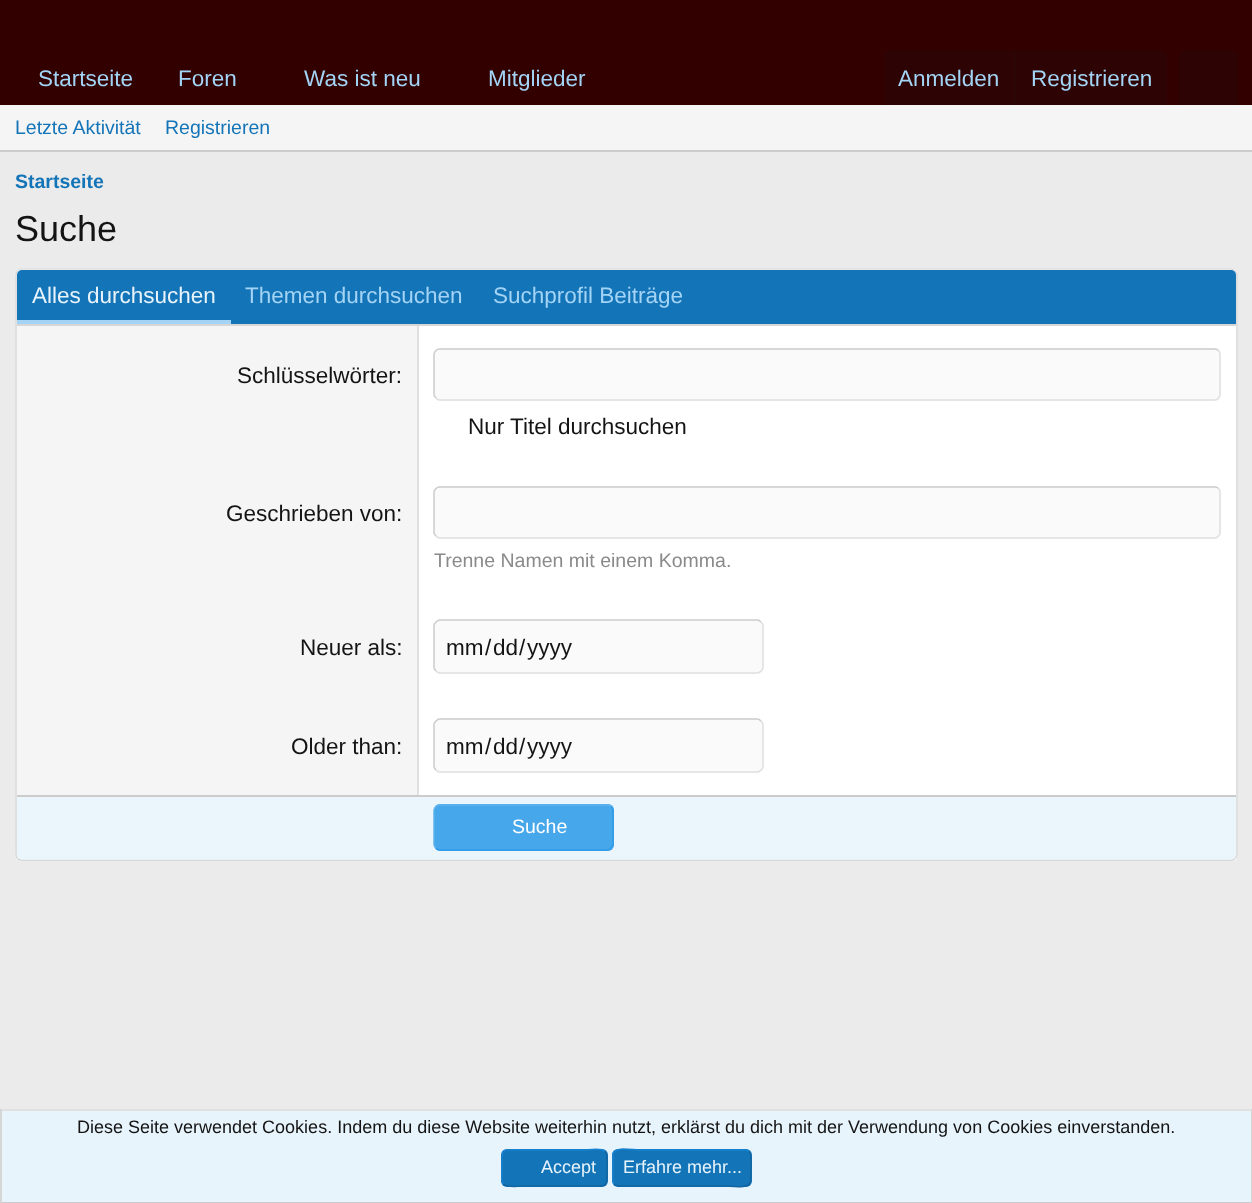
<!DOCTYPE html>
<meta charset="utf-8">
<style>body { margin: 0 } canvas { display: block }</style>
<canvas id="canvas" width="1252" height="1203"></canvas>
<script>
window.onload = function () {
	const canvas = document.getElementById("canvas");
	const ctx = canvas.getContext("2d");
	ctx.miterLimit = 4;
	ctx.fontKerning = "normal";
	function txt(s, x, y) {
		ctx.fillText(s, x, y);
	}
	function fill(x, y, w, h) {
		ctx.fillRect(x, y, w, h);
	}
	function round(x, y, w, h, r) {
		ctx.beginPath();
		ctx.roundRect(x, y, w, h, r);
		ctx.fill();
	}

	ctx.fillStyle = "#EBEBEB";
	fill(0, 0, 1252, 1203);
	ctx.fillStyle = "#330000";
	fill(0, 0, 1252, 105);
	ctx.fillStyle = "#2E0303";
	ctx.beginPath();
	ctx.roundRect(884, 50, 283, 55, [6, 6, 0, 0]);
	ctx.fill();
	ctx.fillStyle = "#2A0606";
	fill(1014, 50, 2, 55);
	ctx.fillStyle = "#2E0303";
	ctx.beginPath();
	ctx.roundRect(1179, 50, 59, 55, [6, 6, 0, 0]);
	ctx.fill();
	ctx.fillStyle = "#F5F5F5";
	fill(0, 105, 1252, 45);
	ctx.fillStyle = "#CCCCCC";
	fill(0, 150, 1252, 2);
	ctx.fillStyle = "#FFFFFF";
	round(15, 269, 1223, 592, 6);
	ctx.beginPath();
	ctx.moveTo(17.5, 271);
	ctx.bezierCurveTo(18.5, 270, 19.5, 269, 21, 269);
	ctx.lineTo(1231.5, 269);
	ctx.bezierCurveTo(1233, 269, 1234, 270, 1235, 271);
	ctx.strokeStyle = "#E0E0E0";
	ctx.lineWidth = 1.5;
	ctx.stroke();
	ctx.beginPath();
	ctx.moveTo(1235, 271);
	ctx.bezierCurveTo(1236, 272, 1237, 273, 1237, 274.5);
	ctx.lineTo(1237, 855);
	ctx.bezierCurveTo(1237, 856.5, 1236, 857.5, 1235, 858.5);
	ctx.strokeStyle = "#D6D6D6";
	ctx.stroke();
	ctx.beginPath();
	ctx.moveTo(1235, 858.5);
	ctx.bezierCurveTo(1234, 859.5, 1233, 860, 1231.5, 860);
	ctx.lineTo(21, 860);
	ctx.bezierCurveTo(19.5, 860, 18.5, 859.5, 17.5, 858.5);
	ctx.strokeStyle = "#CCCCCC";
	ctx.stroke();
	ctx.beginPath();
	ctx.moveTo(17.5, 858.5);
	ctx.bezierCurveTo(16.5, 857.5, 16, 856.5, 16, 855);
	ctx.lineTo(16, 274.5);
	ctx.bezierCurveTo(16, 273, 16.5, 272, 17.5, 271);
	ctx.strokeStyle = "#D6D6D6";
	ctx.stroke();
	ctx.fillStyle = "#1474B8";
	ctx.beginPath();
	ctx.roundRect(17, 270, 1219, 56, [5, 5, 0, 0]);
	ctx.fill();
	ctx.fillStyle = "#D6D6D6";
	fill(17, 324, 1219, 2);
	ctx.fillStyle = "#A3D4F5";
	fill(17, 320, 214, 4);
	ctx.fillStyle = "#F5F5F5";
	fill(17, 326, 400, 469);
	ctx.fillStyle = "#E0E0E0";
	fill(417, 326, 2, 469);
	ctx.fillStyle = "#FAFAFA";
	round(434, 348, 787, 53, 6);
	ctx.beginPath();
	ctx.moveTo(1218.5, 350.5);
	ctx.bezierCurveTo(1219.5, 351.5, 1220, 352.5, 1220, 354);
	ctx.lineTo(1220, 394.5);
	ctx.bezierCurveTo(1220, 396, 1219.5, 397, 1218.5, 398);
	ctx.bezierCurveTo(1217.5, 399, 1216.5, 400, 1215, 400);
	ctx.lineTo(439.5, 400);
	ctx.bezierCurveTo(438, 400, 437, 399, 436, 398);
	ctx.strokeStyle = "#E0E0E0";
	ctx.stroke();
	ctx.beginPath();
	ctx.moveTo(436, 398);
	ctx.bezierCurveTo(435, 397, 434, 396, 434, 394.5);
	ctx.lineTo(434, 354);
	ctx.bezierCurveTo(434, 352.5, 435, 351.5, 436, 350.5);
	ctx.bezierCurveTo(437, 349.5, 438, 349, 439.5, 349);
	ctx.lineTo(1215, 349);
	ctx.bezierCurveTo(1216.5, 349, 1217.5, 349.5, 1218.5, 350.5);
	ctx.strokeStyle = "#CCCCCC";
	ctx.stroke();
	round(434, 486, 787, 53, 6);
	ctx.beginPath();
	ctx.moveTo(1218.5, 488.5);
	ctx.bezierCurveTo(1219.5, 489.5, 1220, 490.5, 1220, 492);
	ctx.lineTo(1220, 532.5);
	ctx.bezierCurveTo(1220, 534, 1219.5, 535, 1218.5, 536);
	ctx.bezierCurveTo(1217.5, 537, 1216.5, 538, 1215, 538);
	ctx.lineTo(439.5, 538);
	ctx.bezierCurveTo(438, 538, 437, 537, 436, 536);
	ctx.strokeStyle = "#E0E0E0";
	ctx.stroke();
	ctx.beginPath();
	ctx.moveTo(436, 536);
	ctx.bezierCurveTo(435, 535, 434, 534, 434, 532.5);
	ctx.lineTo(434, 492);
	ctx.bezierCurveTo(434, 490.5, 435, 489.5, 436, 488.5);
	ctx.bezierCurveTo(437, 487.5, 438, 487, 439.5, 487);
	ctx.lineTo(1215, 487);
	ctx.bezierCurveTo(1216.5, 487, 1217.5, 487.5, 1218.5, 488.5);
	ctx.strokeStyle = "#CCCCCC";
	ctx.stroke();
	round(434, 620, 330, 54, 6);
	ctx.beginPath();
	ctx.moveTo(761, 622);
	ctx.bezierCurveTo(762, 623, 763, 624, 763, 625.5);
	ctx.lineTo(763, 667.5);
	ctx.bezierCurveTo(763, 669, 762, 670, 761, 671);
	ctx.bezierCurveTo(760, 672, 759, 673, 757.5, 673);
	ctx.lineTo(439.5, 673);
	ctx.bezierCurveTo(438, 673, 437, 672, 436, 671);
	ctx.strokeStyle = "#E0E0E0";
	ctx.stroke();
	ctx.beginPath();
	ctx.moveTo(436, 671);
	ctx.bezierCurveTo(435, 670, 434, 669, 434, 667.5);
	ctx.lineTo(434, 625.5);
	ctx.bezierCurveTo(434, 624, 435, 623, 436, 622);
	ctx.bezierCurveTo(437, 621, 438, 620, 439.5, 620);
	ctx.lineTo(757.5, 620);
	ctx.bezierCurveTo(759, 620, 760, 621, 761, 622);
	ctx.strokeStyle = "#CCCCCC";
	ctx.stroke();
	round(434, 719, 330, 54, 6);
	ctx.beginPath();
	ctx.moveTo(761, 721);
	ctx.bezierCurveTo(762, 722, 763, 723, 763, 724.5);
	ctx.lineTo(763, 766.5);
	ctx.bezierCurveTo(763, 768, 762, 769, 761, 770);
	ctx.bezierCurveTo(760, 771, 759, 772, 757.5, 772);
	ctx.lineTo(439.5, 772);
	ctx.bezierCurveTo(438, 772, 437, 771, 436, 770);
	ctx.strokeStyle = "#E0E0E0";
	ctx.stroke();
	ctx.beginPath();
	ctx.moveTo(436, 770);
	ctx.bezierCurveTo(435, 769, 434, 768, 434, 766.5);
	ctx.lineTo(434, 724.5);
	ctx.bezierCurveTo(434, 723, 435, 722, 436, 721);
	ctx.bezierCurveTo(437, 720, 438, 719, 439.5, 719);
	ctx.lineTo(757.5, 719);
	ctx.bezierCurveTo(759, 719, 760, 720, 761, 721);
	ctx.strokeStyle = "#CCCCCC";
	ctx.stroke();
	ctx.fillStyle = "rgba(232, 244, 252, 0.9)";
	ctx.beginPath();
	ctx.roundRect(17, 795, 1219, 65, [0, 0, 5, 5]);
	ctx.fill();
	ctx.fillStyle = "#CCCCCC";
	fill(17, 795, 1219, 2);
	ctx.fillStyle = "#47A7EB";
	round(434, 804, 180, 47, 6);
	ctx.beginPath();
	ctx.moveTo(611, 806.5);
	ctx.bezierCurveTo(612, 807.5, 613, 808.5, 613, 810);
	ctx.lineTo(613, 844.5);
	ctx.bezierCurveTo(613, 846, 612, 847, 611, 848);
	ctx.bezierCurveTo(610, 849, 609, 850, 607.5, 850);
	ctx.lineTo(439.5, 850);
	ctx.bezierCurveTo(438, 850, 437, 849, 436, 848);
	ctx.strokeStyle = "#309CE8";
	ctx.stroke();
	ctx.beginPath();
	ctx.moveTo(436, 848);
	ctx.bezierCurveTo(435, 847, 434, 846, 434, 844.5);
	ctx.lineTo(434, 810);
	ctx.bezierCurveTo(434, 808.5, 435, 807.5, 436, 806.5);
	ctx.bezierCurveTo(437, 805.5, 438, 805, 439.5, 805);
	ctx.lineTo(607.5, 805);
	ctx.bezierCurveTo(609, 805, 610, 805.5, 611, 806.5);
	ctx.strokeStyle = "#5EB2ED";
	ctx.stroke();
	ctx.fillStyle = "#E8F4FC";
	fill(2, 1111, 1249, 91);
	ctx.fillStyle = "#E0E0E0";
	fill(0, 1109, 1252, 2);
	ctx.fillStyle = "#D6D6D6";
	fill(1251, 1109, 1, 94);
	ctx.fillStyle = "#CCCCCC";
	fill(0, 1202, 1252, 1);
	ctx.fillStyle = "#D6D6D6";
	fill(0, 1109, 2, 94);
	ctx.fillStyle = "#1474B8";
	round(501, 1149, 107, 38, 6);
	ctx.beginPath();
	ctx.moveTo(605, 1151.5);
	ctx.bezierCurveTo(608, 1154, 607, 1164, 607, 1168);
	ctx.bezierCurveTo(607, 1189, 608.5, 1186, 586, 1186);
	ctx.lineTo(523, 1186);
	ctx.bezierCurveTo(521, 1186, 507, 1188, 503.5, 1184);
	ctx.strokeStyle = "#1265A1";
	ctx.stroke();
	ctx.beginPath();
	ctx.moveTo(503.5, 1184);
	ctx.bezierCurveTo(500.5, 1181.5, 502, 1171.5, 502, 1168);
	ctx.bezierCurveTo(502, 1146.5, 500, 1150, 523, 1150);
	ctx.lineTo(586, 1150);
	ctx.bezierCurveTo(587.5, 1150, 601.5, 1147.5, 605, 1151.5);
	ctx.strokeStyle = "#1782CF";
	ctx.stroke();
	round(612, 1149, 140, 38, 6);
	ctx.beginPath();
	ctx.moveTo(749, 1151.5);
	ctx.bezierCurveTo(752, 1154, 751, 1164, 751, 1168);
	ctx.lineTo(750.5, 1181.5);
	ctx.bezierCurveTo(749, 1189.5, 731.5, 1186, 724, 1186);
	ctx.lineTo(618, 1186);
	ctx.bezierCurveTo(616.5, 1185.5, 615.5, 1185, 614.5, 1184);
	ctx.strokeStyle = "#1265A1";
	ctx.stroke();
	ctx.beginPath();
	ctx.moveTo(614.5, 1184);
	ctx.bezierCurveTo(611.5, 1181.5, 613, 1171.5, 613, 1168);
	ctx.lineTo(613, 1154);
	ctx.bezierCurveTo(614.5, 1146, 632, 1150, 639, 1150);
	ctx.lineTo(745.5, 1150);
	ctx.bezierCurveTo(747, 1150, 748, 1150.5, 749, 1151.5);
	ctx.strokeStyle = "#1782CF";
	ctx.stroke();
	ctx.font = "22.5px Liberation Sans";
	ctx.fillStyle = "#A3D4F5";
	txt("Startseite", 38, 86);
	txt("Foren", 178, 86);
	txt("Was ist neu", 304, 86);
	txt("Mitglieder", 488, 86);
	txt("Anmelden", 898, 86);
	txt("Registrieren", 1031, 86);
	ctx.font = "19.5px Liberation Sans";
	ctx.fillStyle = "#1474B8";
	txt("Letzte Aktivität", 15, 134);
	txt("Registrieren", 165, 134);
	ctx.font = "bold 19.5px Liberation Sans";
	txt("Startseite", 15, 188);
	ctx.font = "36px Liberation Sans";
	ctx.fillStyle = "#141414";
	txt("Suche", 15, 241);
	ctx.font = "22.5px Liberation Sans";
	ctx.fillStyle = "#E8F4FC";
	txt("Alles durchsuchen", 32, 303);
	ctx.fillStyle = "#A3D4F5";
	txt("Themen durchsuchen", 245, 303);
	txt("Suchprofil Beiträge", 493, 303);
	ctx.fillStyle = "#141414";
	txt("Schlüsselwörter:", 237, 383);
	txt("Nur Titel durchsuchen", 468, 434);
	txt("Geschrieben von:", 226, 521);
	ctx.font = "19.5px Liberation Sans";
	ctx.fillStyle = "#8A8A8A";
	txt("Trenne Namen mit einem Komma.", 434, 567);
	ctx.font = "22.5px Liberation Sans";
	ctx.fillStyle = "#141414";
	txt("Neuer als:", 300, 655);
	txt("mm", 446, 655);
	txt("/", 485, 655);
	txt("dd", 493, 655);
	txt("/", 519, 655);
	txt("yyyy", 527, 655);
	txt("Older than:", 291, 754);
	txt("mm", 446, 754);
	txt("/", 485, 754);
	txt("dd", 493, 754);
	txt("/", 519, 754);
	txt("yyyy", 527, 754);
	ctx.font = "19.5px Liberation Sans";
	ctx.fillStyle = "#FFFFFF";
	txt("Suche", 512, 833);
	ctx.font = "18px Liberation Sans";
	ctx.fillStyle = "#141414";
	txt("Diese Seite verwendet Cookies. Indem du diese Website weiterhin nutzt, erklärst du dich mit der Verwendung von Cookies einverstanden.", 77, 1133);
	ctx.fillStyle = "#E8F4FC";
	txt("Accept", 541, 1173);
	txt("Erfahre mehr...", 623, 1173);
};
</script>
